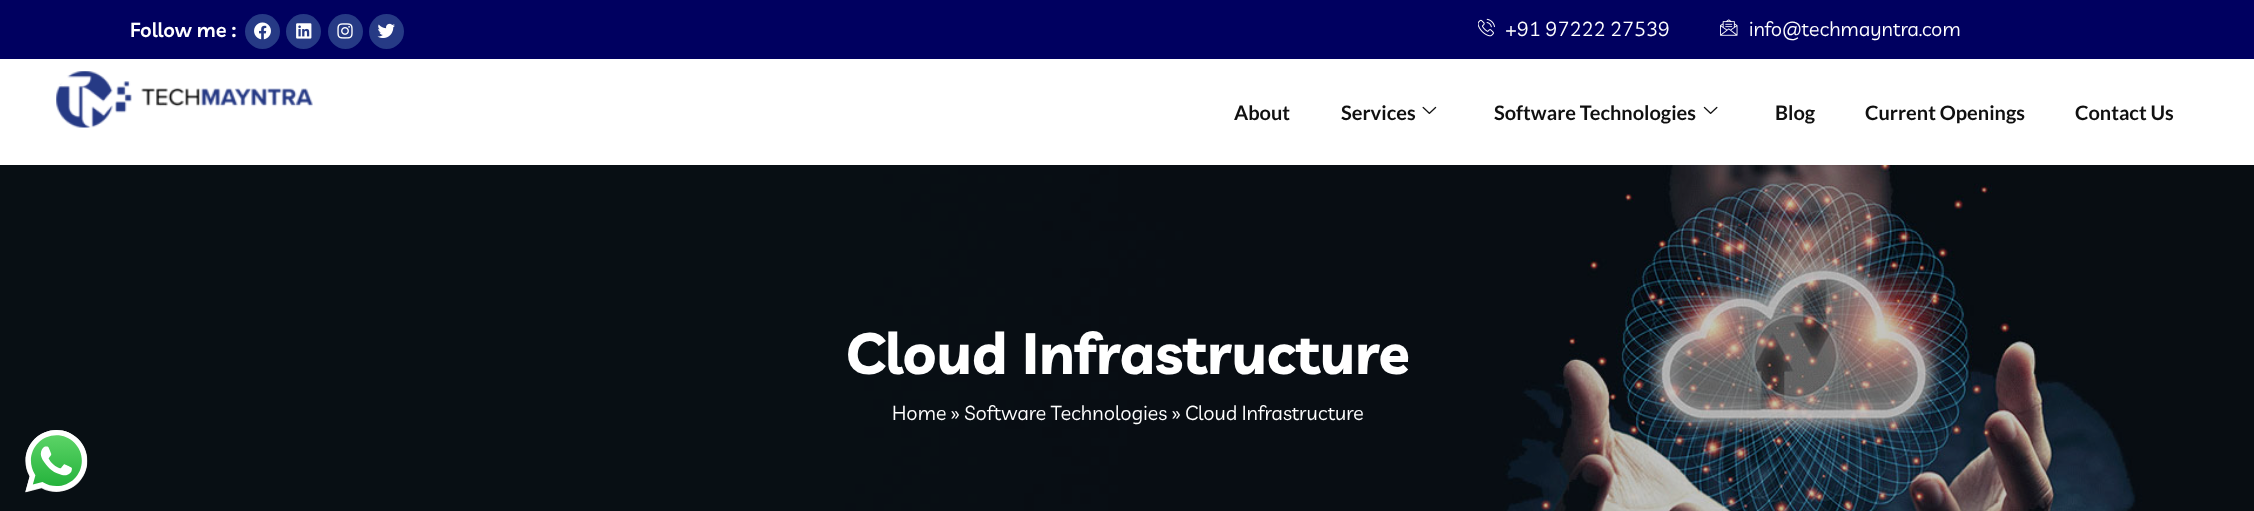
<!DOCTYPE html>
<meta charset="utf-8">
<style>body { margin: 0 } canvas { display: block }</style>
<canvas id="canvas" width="2254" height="511"></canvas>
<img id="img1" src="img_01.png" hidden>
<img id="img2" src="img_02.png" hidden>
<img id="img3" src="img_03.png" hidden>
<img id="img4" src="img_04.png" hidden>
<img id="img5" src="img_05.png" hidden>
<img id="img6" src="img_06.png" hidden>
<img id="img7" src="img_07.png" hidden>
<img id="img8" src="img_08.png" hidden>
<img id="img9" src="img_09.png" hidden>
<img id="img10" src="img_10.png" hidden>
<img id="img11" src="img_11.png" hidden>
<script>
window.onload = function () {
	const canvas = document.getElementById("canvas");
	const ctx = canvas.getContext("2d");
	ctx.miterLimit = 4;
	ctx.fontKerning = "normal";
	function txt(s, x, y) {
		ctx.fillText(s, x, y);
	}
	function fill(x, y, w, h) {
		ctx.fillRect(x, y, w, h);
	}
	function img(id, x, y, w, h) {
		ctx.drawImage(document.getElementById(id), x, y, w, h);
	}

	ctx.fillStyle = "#FFFFFF";
	fill(0, 0, 2254, 511);
	ctx.fillStyle = "#000060";
	fill(0, 0, 2254, 59);
	ctx.fillStyle = "#263A85";
	ctx.beginPath();
	ctx.arc(262.5, 31.5, 17.5, 0, Math.PI * 2);
	ctx.fill();
	img("img1", 254, 22, 17, 18);
	ctx.beginPath();
	ctx.arc(303.5, 31.5, 17.5, 0, Math.PI * 2);
	ctx.fill();
	img("img2", 296, 23, 16, 16);
	ctx.beginPath();
	ctx.arc(345.5, 31.5, 17.5, 0, Math.PI * 2);
	ctx.fill();
	img("img3", 337, 23, 16, 16);
	ctx.beginPath();
	ctx.arc(386.5, 31.5, 17.5, 0, Math.PI * 2);
	ctx.fill();
	img("img4", 377, 23, 18, 15);
	img("img5", 1478, 18, 17, 19);
	img("img6", 1720, 19, 18, 17);
	img("img7", 56, 71, 257, 57);
	img("img8", 1422, 106, 15, 8);
	img("img9", 1703, 106, 15, 8);
	img("img10", 0, 165, 2254, 346);
	img("img11", 25, 430, 63, 63);
	ctx.font = "600 20px Livvic";
	ctx.fillStyle = "#FFFFFF";
	txt("Follow me :", 130, 37);
	ctx.font = "20px Livvic";
	txt("+91 97222 27539", 1505, 36);
	txt("info@techmayntra.com", 1749, 36);
	ctx.font = "bold 20px Lato";
	ctx.fillStyle = "#101010";
	txt("About", 1234, 120);
	txt("Services", 1341, 120);
	txt("Software Technologies", 1494, 120);
	txt("Blog", 1775, 120);
	txt("Current Openings", 1865, 120);
	txt("Contact Us", 2075, 120);
	ctx.font = "bold 57.5px Livvic";
	ctx.fillStyle = "#FFFFFF";
	txt("Cloud Infrastructure", 846, 374);
	ctx.font = "20px Livvic";
	txt("Home » Software Technologies » Cloud Infrastructure", 892, 420);
};
</script>
